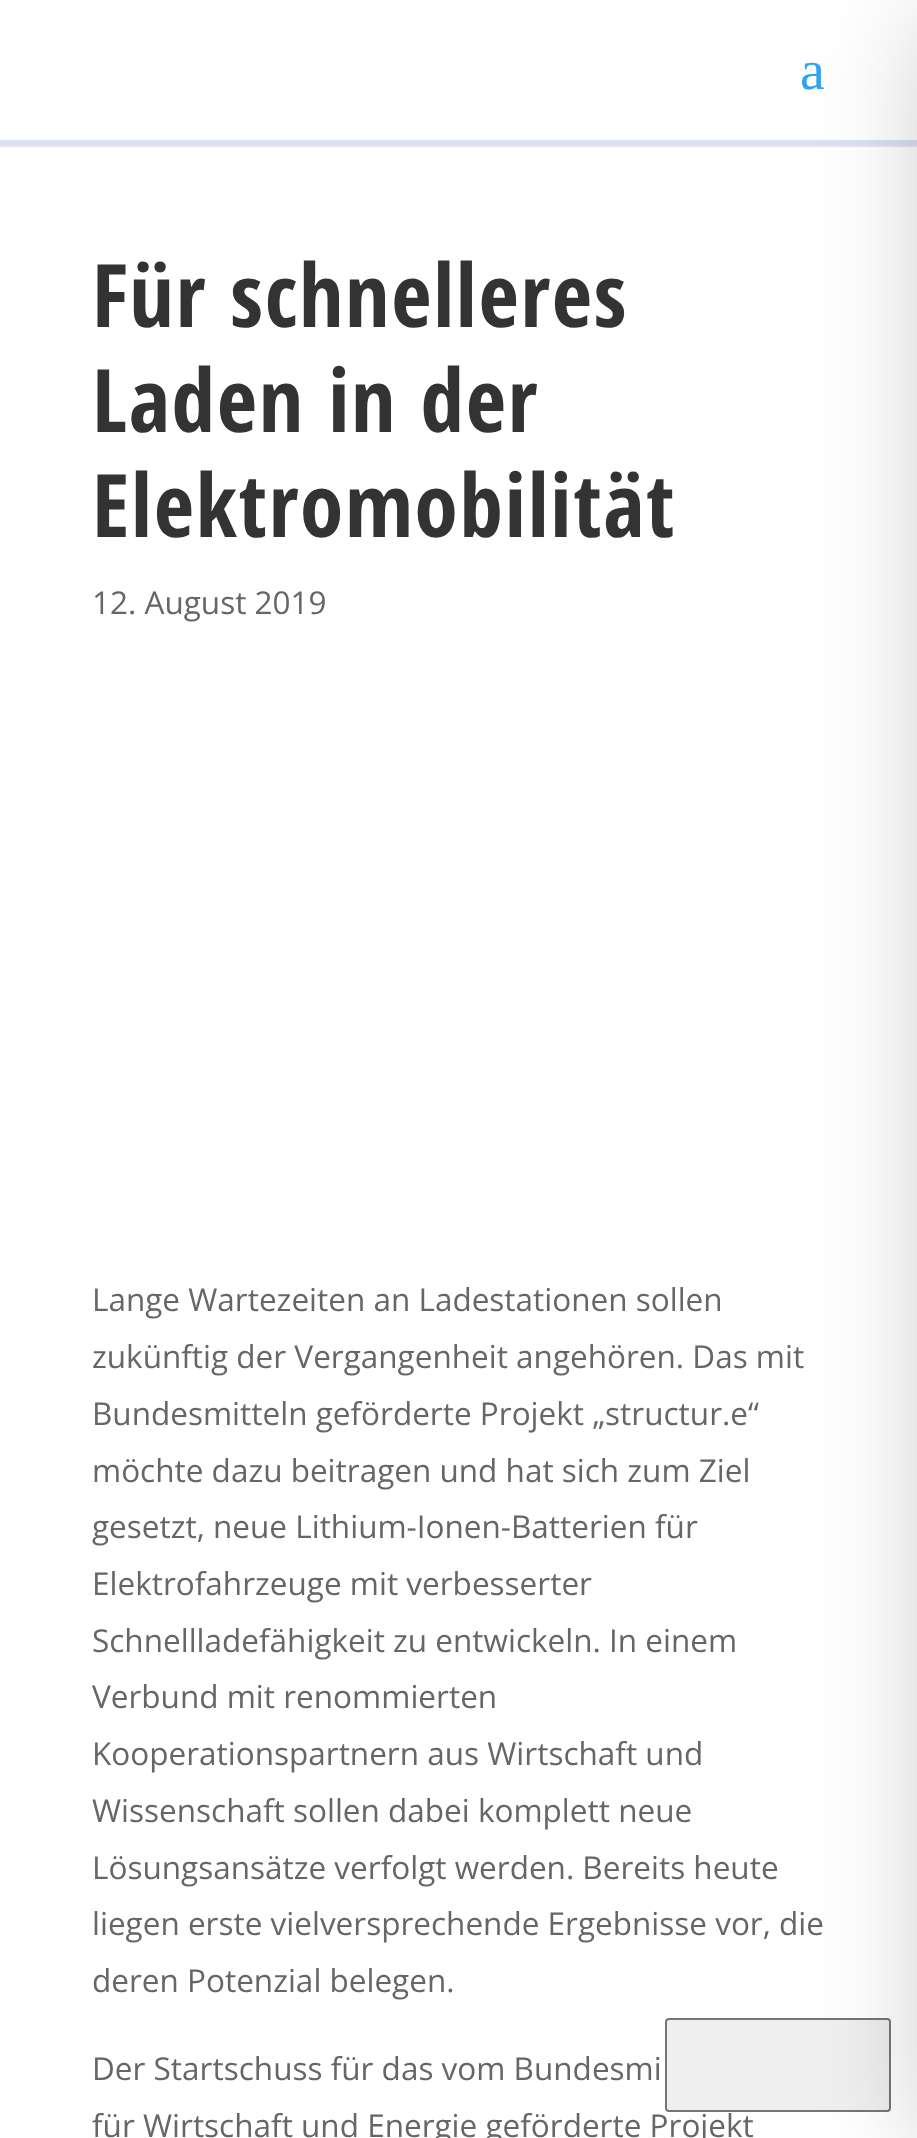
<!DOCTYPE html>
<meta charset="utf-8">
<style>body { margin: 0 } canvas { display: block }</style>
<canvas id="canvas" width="917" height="2138"></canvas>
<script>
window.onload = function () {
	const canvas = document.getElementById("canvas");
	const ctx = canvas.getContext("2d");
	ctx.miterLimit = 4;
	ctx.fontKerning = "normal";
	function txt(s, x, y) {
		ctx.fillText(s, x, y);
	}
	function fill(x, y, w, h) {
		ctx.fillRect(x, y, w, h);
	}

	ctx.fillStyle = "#FFFFFF";
	fill(0, 0, 917, 2138);
	ctx.fillStyle = "#E6E6E6";
	fill(0, 145, 917, 2);
	ctx.fillStyle = "#DBE0F2";
	fill(0, 140, 917, 5);
	ctx.fillStyle = "#EFEFEF";
	ctx.beginPath();
	ctx.roundRect(666, 2019, 224, 92, 3);
	ctx.fill();
	ctx.strokeStyle = "#767676";
	ctx.lineWidth = 2;
	ctx.stroke();
	ctx.fillStyle = "rgba(0, 0, 0, 0.2)";
	ctx.filter = "blur(52.5px)";
	ctx.beginPath();
	ctx.rect(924, 18, 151, 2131);
	ctx.fill();
	ctx.filter = "none";
	ctx.font = "56px Liberation Serif";
	ctx.fillStyle = "#2EA3F2";
	txt("a", 800, 89);
	ctx.letterSpacing = "1.75px";
	ctx.font = "bold 87.5px Open Sans Condensed";
	ctx.fillStyle = "#333333";
	txt("Für schnelleres", 92, 327);
	txt("Laden in der", 92, 432);
	txt("Elektromobilität", 92, 537);
	ctx.letterSpacing = "0px";
	ctx.font = "31.5px Open Sans";
	ctx.fillStyle = "#666666";
	txt("12. August 2019", 92, 614);
	txt("Lange Wartezeiten an Ladestationen sollen", 92, 1311);
	txt("zukünftig der Vergangenheit angehören. Das mit", 92, 1368);
	txt("Bundesmitteln geförderte Projekt „structur.e“", 92, 1425);
	txt("möchte dazu beitragen und hat sich zum Ziel", 92, 1482);
	txt("gesetzt, neue Lithium-Ionen-Batterien für", 92, 1538);
	txt("Elektrofahrzeuge mit verbesserter", 92, 1595);
	txt("Schnellladefähigkeit zu entwickeln. In einem", 92, 1652);
	txt("Verbund mit renommierten", 92, 1708);
	txt("Kooperationspartnern aus Wirtschaft und", 92, 1765);
	txt("Wissenschaft sollen dabei komplett neue", 92, 1822);
	txt("Lösungsansätze verfolgt werden. Bereits heute", 92, 1879);
	txt("liegen erste vielversprechende Ergebnisse vor, die", 92, 1935);
	txt("deren Potenzial belegen.", 92, 1992);
	txt("Der Startschuss für das vom Bundesmi", 92, 2080);
	txt("für Wirtschaft und Energie geförderte Projekt", 92, 2137);
};
</script>
